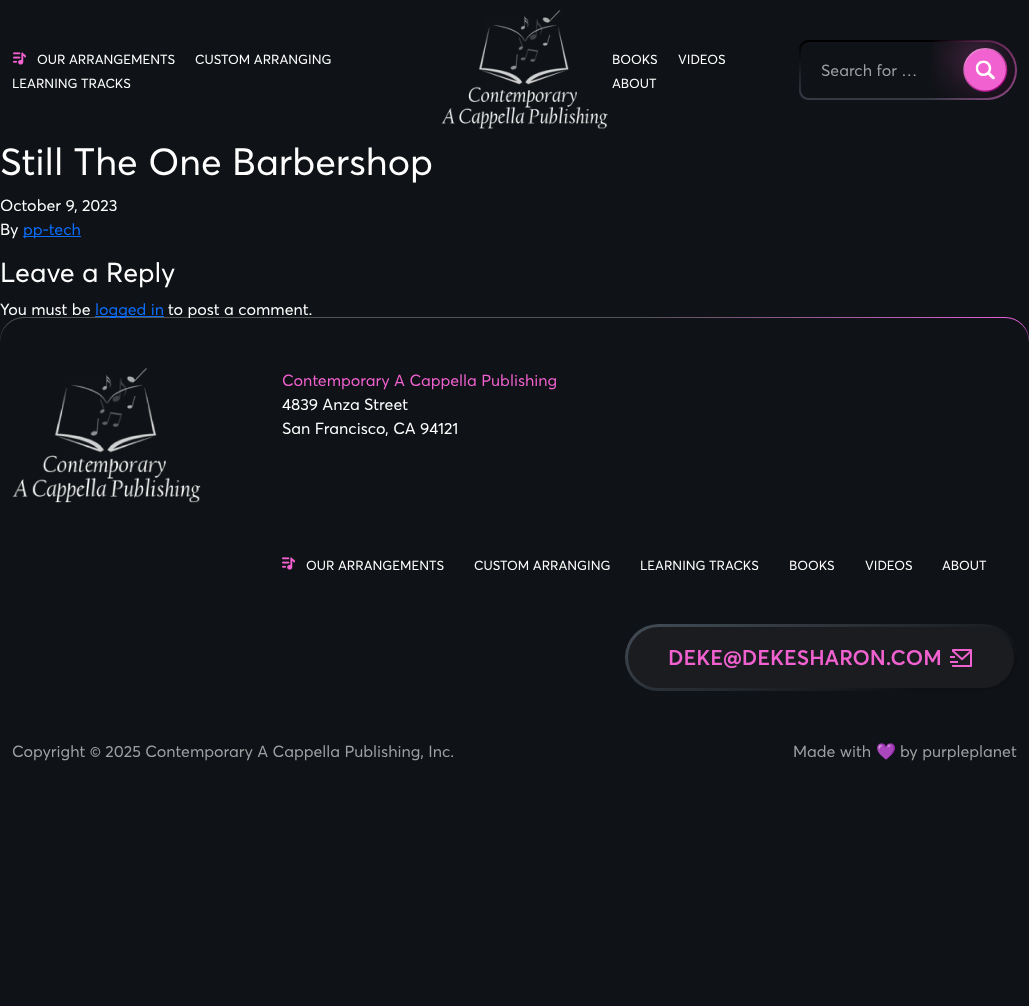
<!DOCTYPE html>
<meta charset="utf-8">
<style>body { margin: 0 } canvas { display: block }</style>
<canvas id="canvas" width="1029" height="1006"></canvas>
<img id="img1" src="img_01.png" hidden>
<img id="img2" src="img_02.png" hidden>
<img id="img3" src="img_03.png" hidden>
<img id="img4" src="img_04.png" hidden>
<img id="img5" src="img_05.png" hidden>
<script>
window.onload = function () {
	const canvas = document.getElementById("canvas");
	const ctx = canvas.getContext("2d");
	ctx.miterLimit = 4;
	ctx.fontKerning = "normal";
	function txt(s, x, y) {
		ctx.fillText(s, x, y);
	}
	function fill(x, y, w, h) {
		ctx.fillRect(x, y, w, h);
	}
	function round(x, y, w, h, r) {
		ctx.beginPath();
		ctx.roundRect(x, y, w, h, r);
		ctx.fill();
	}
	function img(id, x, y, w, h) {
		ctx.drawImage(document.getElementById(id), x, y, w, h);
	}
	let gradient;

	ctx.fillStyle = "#0F1216";
	fill(0, 0, 1029, 1006);
	img("img1", 13, 52, 13, 13);
	img("img2", 441, 10, 167, 119);
	gradient = ctx.createLinearGradient(908, 40, 908, 100);
	gradient.addColorStop(0.03, "#000000");
	gradient.addColorStop(1, "#383B46");
	ctx.fillStyle = gradient;
	ctx.beginPath();
	ctx.roundRect(799, 40, 218, 60, [9, 30, 30, 9]);
	ctx.fill();
	gradient = ctx.createLinearGradient(1018, 76, 798, 64);
	gradient.addColorStop(0.01, "rgba(241, 97, 207, 0.5)");
	gradient.addColorStop(0.4, "rgba(241, 97, 207, 0)");
	ctx.fillStyle = gradient;
	ctx.beginPath();
	ctx.roundRect(799, 40, 218, 60, [9, 30, 30, 9]);
	ctx.fill();
	ctx.fillStyle = "#0F1216";
	ctx.beginPath();
	ctx.roundRect(801, 42, 214, 56, [8, 28, 28, 8]);
	ctx.fill();
	img("img3", 932, 41, 84, 58);
	ctx.fillStyle = "#0D6EFD";
	fill(23, 236, 58, 1);
	fill(95, 316, 69, 1);
	gradient = ctx.createLinearGradient(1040, 578, -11, 521);
	gradient.addColorStop(0.01, "#F161E5");
	gradient.addColorStop(0.4, "#535353");
	ctx.fillStyle = gradient;
	ctx.beginPath();
	ctx.roundRect(0, 317, 1029, 465, [24, 24, 0, 0]);
	ctx.fill();
	ctx.font = "13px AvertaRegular";
	ctx.fillStyle = "#FFFFFF";
	txt("OUR ARRANGEMENTS", 37, 64);
	txt("CUSTOM ARRANGING", 195, 64);
	txt("LEARNING TRACKS", 12, 88);
	txt("BOOKS", 612, 64);
	txt("VIDEOS", 678, 64);
	txt("ABOUT", 612, 88);
	ctx.font = "16px AvertaRegular";
	ctx.fillStyle = "#9FA0A2";
	txt("Search for …", 821, 76);
	ctx.font = "37.5px AvertaRegular";
	ctx.fillStyle = "#FFFFFF";
	txt("Still The One Barbershop", 0, 175);
	ctx.font = "16px AvertaRegular";
	txt("October 9, 2023", 0, 211);
	txt("By", 0, 235);
	ctx.fillStyle = "#0D6EFD";
	txt("pp-tech", 23, 235);
	ctx.font = "27px AvertaRegular";
	ctx.fillStyle = "#FFFFFF";
	txt("Leave a Reply", 0, 282);
	ctx.font = "16px AvertaRegular";
	txt("You must be", 0, 315);
	ctx.fillStyle = "#0D6EFD";
	txt("logged in", 95, 315);
	ctx.fillStyle = "#FFFFFF";
	txt("to post a comment.", 168, 315);
	ctx.fillStyle = "#0F1216";
	ctx.beginPath();
	ctx.roundRect(0, 318, 1029, 465, [24, 24, 0, 0]);
	ctx.fill();
	img("img4", 12, 368, 189, 135);
	ctx.fillStyle = "#F161CF";
	txt("Contemporary A Cappella Publishing", 282, 386);
	ctx.fillStyle = "#FFFFFF";
	txt("4839 Anza Street", 282, 410);
	txt("San Francisco, CA 94121", 282, 434);
	img("img1", 282, 557, 13, 13);
	ctx.font = "13px AvertaRegular";
	txt("OUR ARRANGEMENTS", 306, 570);
	txt("CUSTOM ARRANGING", 474, 570);
	txt("LEARNING TRACKS", 640, 570);
	txt("BOOKS", 789, 570);
	txt("VIDEOS", 865, 570);
	txt("ABOUT", 942, 570);
	gradient = ctx.createLinearGradient(783, 540, 850, 745);
	gradient.addColorStop(0, "#4F5A65");
	gradient.addColorStop(0.85, "#0E1013");
	ctx.fillStyle = gradient;
	round(625, 624, 392, 67, 33.5);
	ctx.fillStyle = "#1A1C20";
	round(628, 627, 386, 61, 30.5);
	ctx.font = "600 21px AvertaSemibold";
	ctx.fillStyle = "#F161CF";
	txt("DEKE@DEKESHARON.COM", 668, 665);
	img("img5", 950, 649, 22, 18);
	ctx.font = "16px AvertaRegular";
	ctx.fillStyle = "#9FA0A2";
	txt("Copyright © 2025 Contemporary A Cappella Publishing, Inc.", 12, 757);
	txt("Made with", 793, 757);
	ctx.font = "16px Noto Color Emoji";
	txt("💜", 876, 757);
	ctx.font = "16px AvertaRegular";
	txt("by purpleplanet", 900, 757);
};
</script>
